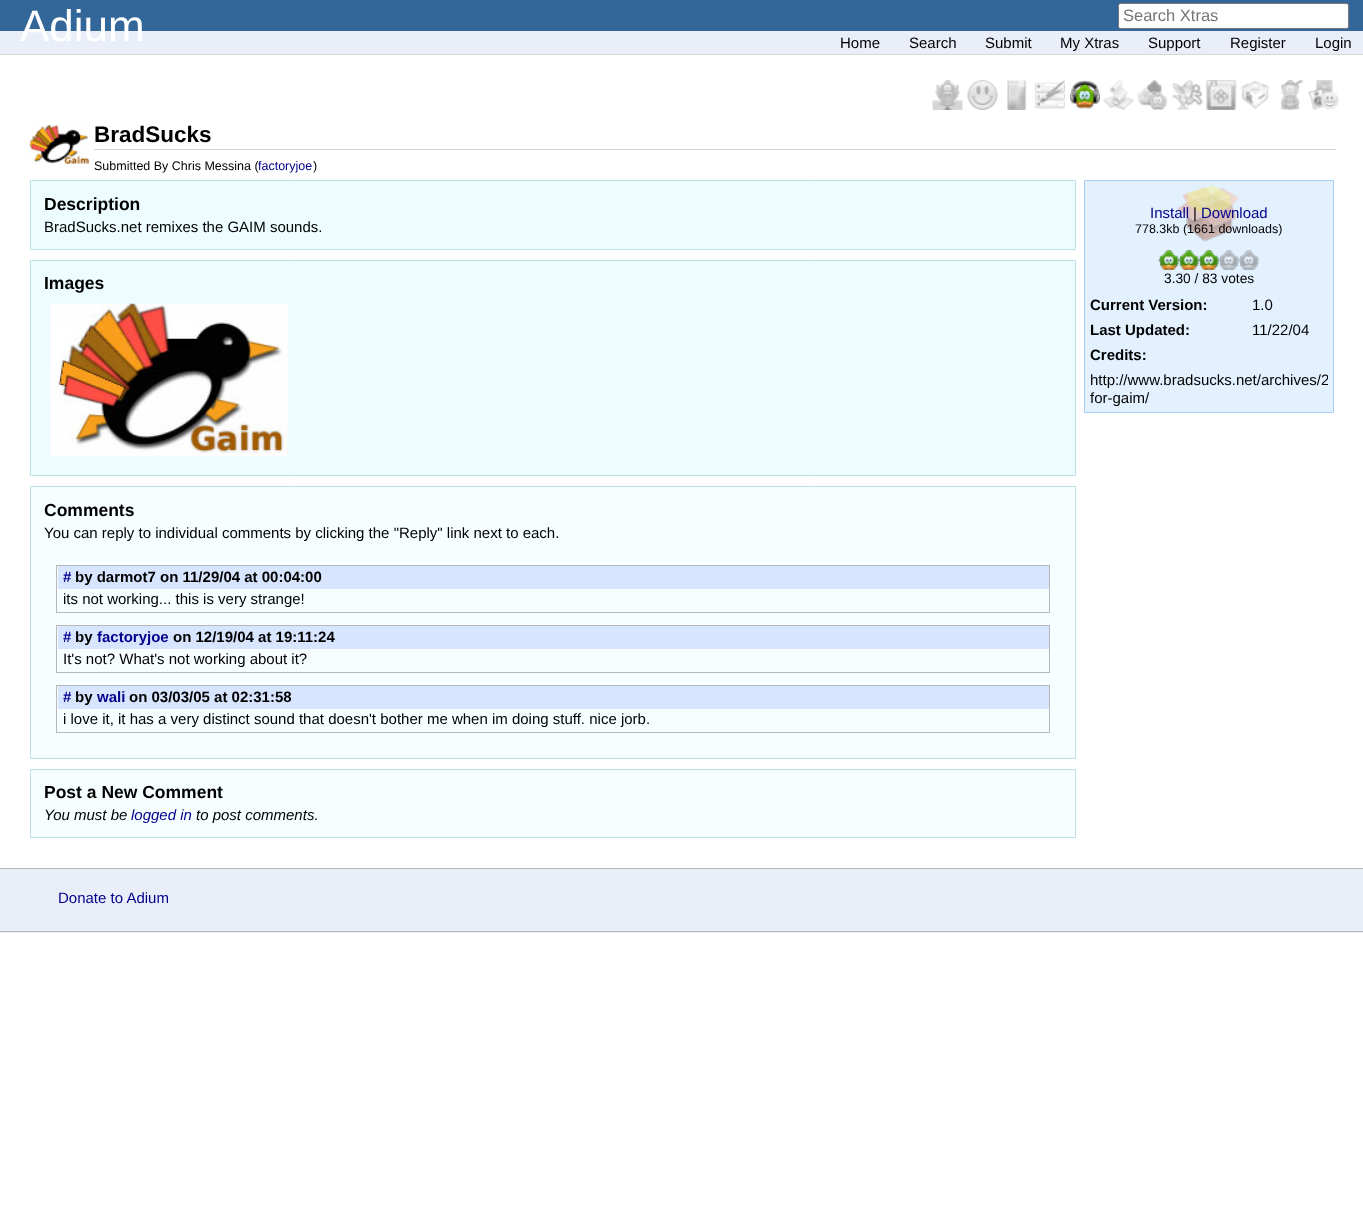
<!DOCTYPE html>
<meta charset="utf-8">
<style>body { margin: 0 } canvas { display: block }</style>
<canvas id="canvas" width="1363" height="1230"></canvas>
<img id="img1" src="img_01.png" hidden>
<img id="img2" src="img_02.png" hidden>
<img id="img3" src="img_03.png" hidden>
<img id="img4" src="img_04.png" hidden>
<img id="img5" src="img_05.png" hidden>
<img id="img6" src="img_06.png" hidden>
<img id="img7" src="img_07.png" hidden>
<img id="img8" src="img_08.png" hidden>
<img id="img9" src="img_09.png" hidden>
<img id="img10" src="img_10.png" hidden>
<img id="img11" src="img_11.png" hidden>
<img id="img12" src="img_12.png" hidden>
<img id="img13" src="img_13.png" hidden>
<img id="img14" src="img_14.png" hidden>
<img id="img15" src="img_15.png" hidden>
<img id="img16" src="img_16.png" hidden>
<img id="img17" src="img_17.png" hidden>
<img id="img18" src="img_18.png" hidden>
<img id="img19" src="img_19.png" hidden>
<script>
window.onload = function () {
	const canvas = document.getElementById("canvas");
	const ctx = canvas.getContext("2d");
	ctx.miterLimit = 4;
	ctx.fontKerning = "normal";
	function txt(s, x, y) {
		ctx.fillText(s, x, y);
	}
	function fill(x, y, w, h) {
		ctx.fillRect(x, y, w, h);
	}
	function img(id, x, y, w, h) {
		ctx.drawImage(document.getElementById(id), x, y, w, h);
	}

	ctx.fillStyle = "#FFFFFF";
	fill(0, 0, 1363, 1230);
	ctx.fillStyle = "#336699";
	fill(0, 0, 1363, 31);
	ctx.fillStyle = "#FFFFFF";
	ctx.beginPath();
	ctx.roundRect(1118.5, 3.5, 230, 25, 2);
	ctx.fill();
	ctx.strokeStyle = "#767676";
	ctx.stroke();
	ctx.fillStyle = "#E9EEF9";
	fill(0, 31, 1363, 23);
	ctx.fillStyle = "#D7D7D7";
	fill(0, 54, 1363, 1);
	img("img1", 932, 80, 31, 30);
	img("img2", 967, 80, 31, 30);
	img("img3", 1007, 80, 20, 30);
	img("img4", 1035, 80, 30, 29);
	img("img5", 1070, 80, 30, 29);
	img("img6", 1103, 80, 31, 30);
	img("img7", 1137, 80, 31, 30);
	img("img8", 1172, 80, 31, 30);
	img("img9", 1206, 80, 31, 30);
	img("img10", 1241, 81, 28, 28);
	img("img11", 1280, 80, 24, 30);
	img("img12", 1308, 80, 31, 30);
	img("img13", 28, 125, 61, 39);
	ctx.fillStyle = "#D3D3D3";
	fill(94, 149, 1242, 1);
	ctx.fillStyle = "#EDFDFF";
	ctx.beginPath();
	ctx.rect(30.5, 180.5, 1045, 69);
	ctx.fill();
	ctx.strokeStyle = "#BCDFE4";
	ctx.stroke();
	ctx.beginPath();
	ctx.rect(30.5, 260.5, 1045, 215);
	ctx.fill();
	ctx.stroke();
	img("img14", 50, 303, 238, 154);
	ctx.fillStyle = "#F7FEFF";
	ctx.beginPath();
	ctx.rect(30.5, 486.5, 1045, 272);
	ctx.fill();
	ctx.stroke();
	ctx.strokeStyle = "#B7B7B7";
	ctx.strokeRect(56.5, 565.5, 993, 47);
	ctx.fillStyle = "#D8E5FF";
	fill(58, 566, 991, 23);
	ctx.strokeRect(56.5, 625.5, 993, 47);
	fill(58, 626, 991, 23);
	ctx.strokeRect(56.5, 685.5, 993, 47);
	fill(58, 686, 991, 23);
	ctx.fillStyle = "#F7FEFF";
	ctx.beginPath();
	ctx.rect(30.5, 769.5, 1045, 68);
	ctx.fill();
	ctx.strokeStyle = "#BCDFE4";
	ctx.stroke();
	ctx.fillStyle = "#E3F1FF";
	ctx.beginPath();
	ctx.rect(1084.5, 180.5, 249, 232);
	ctx.fill();
	ctx.strokeStyle = "#A8CFF6";
	ctx.stroke();
	img("img15", 1177, 185, 62, 57);
	img("img16", 1158, 250, 21, 20);
	img("img17", 1178, 250, 21, 20);
	img("img17", 1198, 250, 21, 20);
	img("img18", 1218, 250, 21, 20);
	img("img19", 1238, 250, 21, 20);
	ctx.fillStyle = "#E9EEF9";
	fill(0, 869, 1363, 64);
	ctx.fillStyle = "#B7B7B7";
	fill(0, 868, 1363, 1);
	fill(0, 931, 1363, 1);
	ctx.font = "44px Liberation Sans";
	ctx.fillStyle = "#FFFFFF";
	txt("Adium", 20, 41);
	ctx.font = "16.5px Liberation Sans";
	ctx.fillStyle = "#757575";
	txt("Search Xtras", 1123, 21);
	ctx.font = "15px Liberation Sans";
	ctx.fillStyle = "#000000";
	txt("Home", 840, 48);
	txt("Search", 909, 48);
	txt("Submit", 985, 48);
	txt("My Xtras", 1060, 48);
	txt("Support", 1148, 48);
	txt("Register", 1230, 48);
	txt("Login", 1315, 48);
	ctx.font = "bold 22.5px Liberation Sans";
	txt("BradSucks", 94, 142);
	ctx.font = "12.5px Liberation Sans";
	txt("Submitted By Chris Messina (", 94, 170);
	ctx.fillStyle = "#00008B";
	txt("factoryjoe", 258, 170);
	ctx.fillStyle = "#000000";
	txt(")", 313, 170);
	ctx.font = "bold 17.5px Liberation Sans";
	txt("Description", 44, 210);
	ctx.font = "15px Liberation Sans";
	txt("BradSucks.net remixes the GAIM sounds.", 44, 232);
	ctx.font = "bold 17.5px Liberation Sans";
	txt("Images", 44, 289);
	txt("Comments", 44, 516);
	ctx.font = "15px Liberation Sans";
	txt("You can reply to individual comments by clicking the \"Reply\" link next to each.", 44, 538);
	ctx.font = "bold 15px Liberation Sans";
	ctx.fillStyle = "#00008B";
	txt("#", 63, 582);
	ctx.fillStyle = "#000000";
	txt("by darmot7 on 11/29/04 at 00:04:00", 75, 582);
	ctx.font = "15px Liberation Sans";
	txt("its not working... this is very strange!", 63, 604);
	ctx.font = "bold 15px Liberation Sans";
	ctx.fillStyle = "#00008B";
	txt("#", 63, 642);
	ctx.fillStyle = "#000000";
	txt("by", 75, 642);
	ctx.fillStyle = "#00008B";
	txt("factoryjoe", 97, 642);
	ctx.fillStyle = "#000000";
	txt("on 12/19/04 at 19:11:24", 173, 642);
	ctx.font = "15px Liberation Sans";
	txt("It's not? What's not working about it?", 63, 664);
	ctx.font = "bold 15px Liberation Sans";
	ctx.fillStyle = "#00008B";
	txt("#", 63, 702);
	ctx.fillStyle = "#000000";
	txt("by", 75, 702);
	ctx.fillStyle = "#00008B";
	txt("wali", 97, 702);
	ctx.fillStyle = "#000000";
	txt("on 03/03/05 at 02:31:58", 129, 702);
	ctx.font = "15px Liberation Sans";
	txt("i love it, it has a very distinct sound that doesn't bother me when im doing stuff. nice jorb.", 63, 724);
	ctx.font = "bold 17.5px Liberation Sans";
	txt("Post a New Comment", 44, 798);
	ctx.font = "italic 15px Liberation Sans";
	txt("You must be", 44, 820);
	ctx.fillStyle = "#00008B";
	txt("logged in", 131, 820);
	ctx.fillStyle = "#000000";
	txt("to post comments.", 196, 820);
	ctx.font = "15px Liberation Sans";
	ctx.fillStyle = "#00008B";
	txt("Install", 1150, 218);
	ctx.fillStyle = "#000000";
	txt("|", 1193, 218);
	ctx.fillStyle = "#00008B";
	txt("Download", 1201, 218);
	ctx.font = "12.5px Liberation Sans";
	ctx.fillStyle = "#000000";
	txt("778.3kb (1661 downloads)", 1135, 233);
	ctx.font = "13.75px Liberation Sans";
	txt("3.30 / 83 votes", 1164, 283);
	ctx.font = "bold 15px Liberation Sans";
	txt("Current Version:", 1090, 310);
	ctx.font = "15px Liberation Sans";
	txt("1.0", 1252, 310);
	ctx.font = "bold 15px Liberation Sans";
	txt("Last Updated:", 1090, 335);
	ctx.font = "15px Liberation Sans";
	txt("11/22/04", 1252, 335);
	ctx.font = "bold 15px Liberation Sans";
	txt("Credits:", 1090, 360);
	ctx.save();
	ctx.beginPath();
	ctx.rect(1090, 371, 238, 35);
	ctx.clip();
	ctx.font = "15px Liberation Sans";
	txt("http://www.bradsucks.net/archives/2", 1090, 385);
	ctx.restore();
	ctx.font = "15px Liberation Sans";
	txt("for-gaim/", 1090, 403);
	ctx.fillStyle = "#00008B";
	txt("Donate to Adium", 58, 903);
};
</script>
